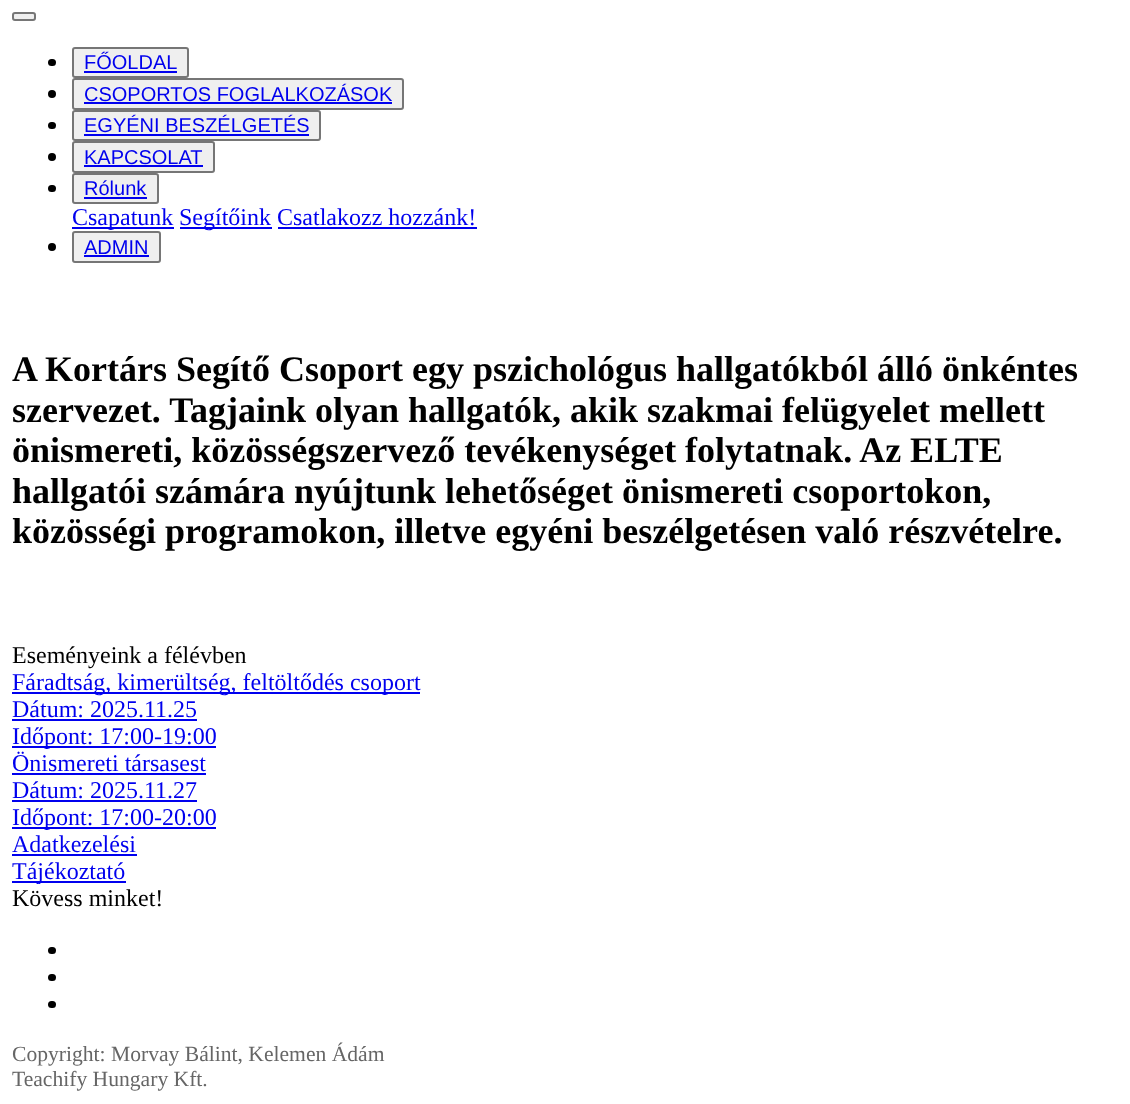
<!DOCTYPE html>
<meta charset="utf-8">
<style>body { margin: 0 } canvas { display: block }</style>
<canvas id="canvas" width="1130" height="1104"></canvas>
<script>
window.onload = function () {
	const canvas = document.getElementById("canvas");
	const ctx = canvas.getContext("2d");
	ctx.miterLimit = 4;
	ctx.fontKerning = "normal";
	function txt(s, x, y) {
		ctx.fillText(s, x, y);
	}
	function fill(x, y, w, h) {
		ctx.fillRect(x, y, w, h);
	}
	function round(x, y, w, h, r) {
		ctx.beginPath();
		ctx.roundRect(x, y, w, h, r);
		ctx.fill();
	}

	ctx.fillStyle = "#FFFFFF";
	fill(0, 0, 1130, 1104);
	ctx.fillStyle = "#EFEFEF";
	ctx.beginPath();
	ctx.roundRect(13, 13, 22, 7, 2);
	ctx.fill();
	ctx.strokeStyle = "#767676";
	ctx.lineWidth = 2;
	ctx.stroke();
	ctx.fillStyle = "#000000";
	round(48, 59, 8, 7, 3.5);
	ctx.fillStyle = "#EFEFEF";
	ctx.beginPath();
	ctx.roundRect(73, 48, 115, 29, 2);
	ctx.fill();
	ctx.stroke();
	ctx.fillStyle = "#0000EE";
	fill(84, 71, 93, 2);
	ctx.fillStyle = "#000000";
	ctx.beginPath();
	ctx.arc(52, 94, 4, 0, Math.PI * 2);
	ctx.fill();
	ctx.fillStyle = "#EFEFEF";
	ctx.beginPath();
	ctx.roundRect(73, 79, 330, 30, 2);
	ctx.fill();
	ctx.stroke();
	ctx.fillStyle = "#0000EE";
	fill(84, 102, 308, 2);
	ctx.fillStyle = "#000000";
	round(48, 122, 8, 7, 3.5);
	ctx.fillStyle = "#EFEFEF";
	ctx.beginPath();
	ctx.roundRect(73, 111, 247, 29, 2);
	ctx.fill();
	ctx.stroke();
	ctx.fillStyle = "#0000EE";
	fill(84, 134, 225, 2);
	ctx.fillStyle = "#000000";
	ctx.beginPath();
	ctx.arc(52, 157, 4, 0, Math.PI * 2);
	ctx.fill();
	ctx.fillStyle = "#EFEFEF";
	ctx.beginPath();
	ctx.roundRect(73, 142, 141, 30, 2);
	ctx.fill();
	ctx.stroke();
	ctx.fillStyle = "#0000EE";
	fill(84, 165, 119, 2);
	ctx.fillStyle = "#000000";
	round(48, 185, 8, 7, 3.5);
	ctx.fillStyle = "#EFEFEF";
	ctx.beginPath();
	ctx.roundRect(73, 174, 85, 29, 2);
	ctx.fill();
	ctx.stroke();
	ctx.fillStyle = "#0000EE";
	fill(84, 197, 63, 2);
	fill(72, 227, 102, 2);
	fill(180, 227, 92, 2);
	fill(278, 227, 199, 2);
	ctx.fillStyle = "#000000";
	ctx.beginPath();
	ctx.arc(52, 247, 4, 0, Math.PI * 2);
	ctx.fill();
	ctx.fillStyle = "#EFEFEF";
	ctx.beginPath();
	ctx.roundRect(73, 232, 87, 30, 2);
	ctx.fill();
	ctx.stroke();
	ctx.fillStyle = "#0000EE";
	fill(84, 255, 65, 2);
	fill(12, 692, 408, 2);
	fill(12, 719, 185, 2);
	fill(12, 746, 204, 2);
	fill(12, 773, 194, 2);
	fill(12, 800, 185, 2);
	fill(12, 827, 204, 2);
	fill(12, 854, 125, 2);
	fill(12, 881, 114, 2);
	ctx.fillStyle = "#000000";
	round(48, 947, 8, 7, 3.5);
	round(48, 974, 8, 7, 3.5);
	round(48, 1001, 8, 7, 3.5);
	ctx.font = "20px Liberation Sans";
	ctx.fillStyle = "#0000EE";
	txt("FŐOLDAL", 84, 69);
	txt("CSOPORTOS FOGLALKOZÁSOK", 84, 101);
	txt("EGYÉNI BESZÉLGETÉS", 84, 132);
	txt("KAPCSOLAT", 84, 164);
	txt("Rólunk", 84, 195);
	ctx.font = "24px Liberation Serif";
	txt("Csapatunk", 72, 225);
	txt("Segítőink Csatlakozz hozzánk!", 179, 225);
	ctx.font = "20px Liberation Sans";
	txt("ADMIN", 84, 254);
	ctx.font = "bold 36px Liberation Serif";
	ctx.fillStyle = "#000000";
	txt("A Kortárs Segítő Csoport egy pszichológus hallgatókból álló önkéntes", 12, 381);
	txt("szervezet. Tagjaink olyan hallgatók, akik szakmai felügyelet mellett", 12, 422);
	txt("önismereti, közösségszervező tevékenységet folytatnak. Az ELTE", 12, 462);
	txt("hallgatói számára nyújtunk lehetőséget önismereti csoportokon,", 12, 503);
	txt("közösségi programokon, illetve egyéni beszélgetésen való részvételre.", 12, 543);
	ctx.font = "24px Liberation Serif";
	txt("Eseményeink a félévben", 12, 663);
	ctx.fillStyle = "#0000EE";
	txt("Fáradtság, kimerültség, feltöltődés csoport", 12, 690);
	txt("Dátum: 2025.11.25", 12, 717);
	txt("Időpont: 17:00-19:00", 12, 744);
	txt("Önismereti társasest", 12, 771);
	txt("Dátum: 2025.11.27", 12, 798);
	txt("Időpont: 17:00-20:00", 12, 825);
	txt("Adatkezelési", 12, 852);
	txt("Tájékoztató", 12, 879);
	ctx.fillStyle = "#000000";
	txt("Kövess minket!", 12, 906);
	ctx.font = "21.6px Liberation Serif";
	ctx.fillStyle = "#666666";
	txt("Copyright: Morvay Bálint, Kelemen Ádám", 12, 1061);
	txt("Teachify Hungary Kft.", 12, 1086);
};
</script>
